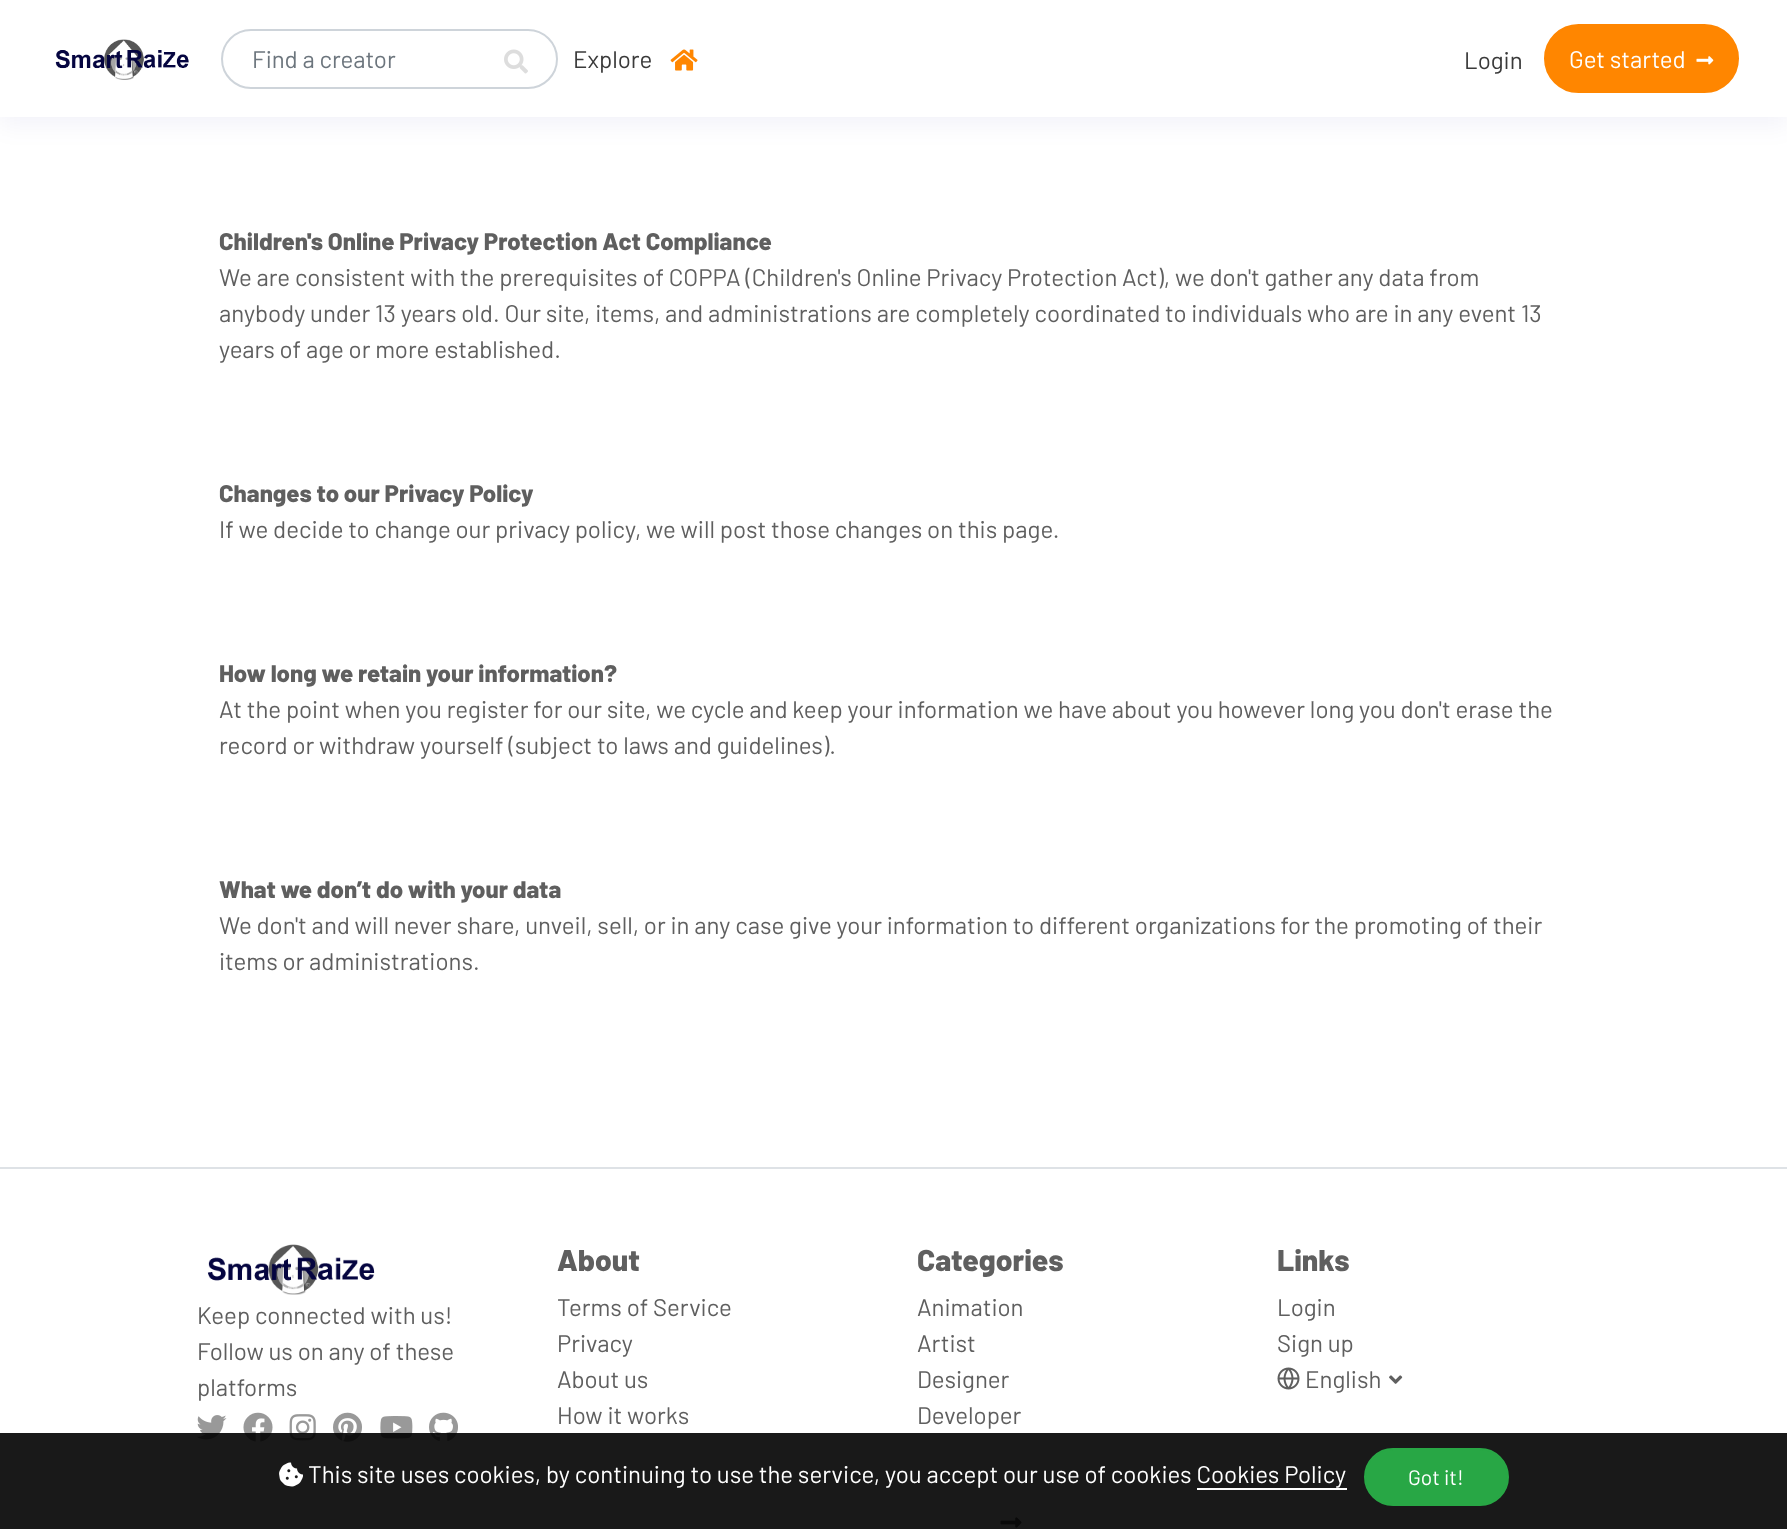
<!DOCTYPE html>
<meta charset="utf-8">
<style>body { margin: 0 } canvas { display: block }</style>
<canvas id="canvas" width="1787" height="1529"></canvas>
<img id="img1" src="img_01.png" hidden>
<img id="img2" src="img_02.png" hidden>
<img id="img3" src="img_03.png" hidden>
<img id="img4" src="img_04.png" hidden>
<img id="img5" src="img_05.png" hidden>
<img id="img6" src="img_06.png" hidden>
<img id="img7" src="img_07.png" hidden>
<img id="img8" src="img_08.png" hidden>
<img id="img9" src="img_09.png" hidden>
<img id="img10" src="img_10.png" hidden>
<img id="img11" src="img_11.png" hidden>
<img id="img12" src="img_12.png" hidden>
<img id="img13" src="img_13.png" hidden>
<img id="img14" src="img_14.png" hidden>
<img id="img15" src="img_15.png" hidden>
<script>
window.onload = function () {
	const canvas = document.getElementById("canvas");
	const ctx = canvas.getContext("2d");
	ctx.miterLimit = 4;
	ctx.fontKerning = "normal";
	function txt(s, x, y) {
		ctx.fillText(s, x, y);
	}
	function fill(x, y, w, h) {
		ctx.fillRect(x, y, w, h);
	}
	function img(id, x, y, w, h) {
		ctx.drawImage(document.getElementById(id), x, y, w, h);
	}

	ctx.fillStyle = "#FFFFFF";
	fill(0, 0, 1787, 1529);
	ctx.fillStyle = "rgba(0, 9, 128, 0.05)";
	ctx.filter = "blur(12px)";
	ctx.beginPath();
	ctx.rect(0, 8, 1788, 117);
	ctx.fill();
	ctx.filter = "none";
	ctx.fillStyle = "#FFFFFF";
	fill(0, 0, 1787, 117);
	img("img1", 55, 39, 134, 41);
	ctx.beginPath();
	ctx.roundRect(222, 30, 335, 58, 29);
	ctx.strokeStyle = "#CED4DA";
	ctx.lineWidth = 2;
	ctx.stroke();
	img("img2", 504, 49, 24, 25);
	img("img3", 670, 49, 28, 22);
	ctx.fillStyle = "#FF8600";
	ctx.beginPath();
	ctx.roundRect(1545, 25, 193, 67, 33.5);
	ctx.fill();
	ctx.strokeStyle = "#FF8600";
	ctx.stroke();
	img("img4", 1696, 56, 18, 9);
	ctx.fillStyle = "#DEE2E6";
	fill(0, 1167, 1787, 2);
	img("img5", 207, 1244, 168, 51);
	img("img6", 196, 1415, 31, 25);
	img("img7", 243, 1412, 30, 30);
	img("img8", 289, 1414, 27, 27);
	img("img9", 333, 1412, 29, 30);
	img("img10", 380, 1416, 33, 23);
	img("img11", 429, 1412, 29, 29);
	img("img12", 1000, 1517, 22, 11);
	img("img13", 1277, 1367, 23, 23);
	img("img14", 1389, 1375, 14, 9);
	ctx.fillStyle = "rgba(0, 0, 0, 0.9)";
	fill(0, 1433, 1787, 96);
	img("img15", 279, 1462, 24, 25);
	ctx.fillStyle = "#28A745";
	ctx.beginPath();
	ctx.roundRect(1365, 1449, 143, 56, 28);
	ctx.fill();
	ctx.strokeStyle = "#28A745";
	ctx.stroke();
	ctx.fillStyle = "#FFFFFF";
	fill(1197, 1488, 150, 2);
	ctx.font = "24px Barlow";
	ctx.fillStyle = "#6C757D";
	txt("Find a creator", 252, 68);
	ctx.fillStyle = "#3A3A3A";
	txt("Explore", 573, 68);
	txt("Login", 1464, 69);
	ctx.fillStyle = "#FFFFFF";
	txt("Get started", 1569, 68);
	ctx.font = "800 24px Barlow";
	ctx.fillStyle = "#5F5F5F";
	txt("Children's Online Privacy Protection Act Compliance", 219, 250);
	ctx.font = "24px Barlow";
	txt("We are consistent with the prerequisites of COPPA (Children's Online Privacy Protection Act), we don't gather any data from", 219, 286);
	txt("anybody under 13 years old. Our site, items, and administrations are completely coordinated to individuals who are in any event 13", 219, 322);
	txt("years of age or more established.", 219, 358);
	ctx.font = "800 24px Barlow";
	txt("Changes to our Privacy Policy", 219, 502);
	ctx.font = "24px Barlow";
	txt("If we decide to change our privacy policy, we will post those changes on this page.", 219, 538);
	ctx.font = "800 24px Barlow";
	txt("How long we retain your information?", 219, 682);
	ctx.font = "24px Barlow";
	txt("At the point when you register for our site, we cycle and keep your information we have about you however long you don't erase the", 219, 718);
	txt("record or withdraw yourself (subject to laws and guidelines).", 219, 754);
	ctx.font = "800 24px Barlow";
	txt("What we don’t do with your data", 219, 898);
	ctx.font = "24px Barlow";
	txt("We don't and will never share, unveil, sell, or in any case give your information to different organizations for the promoting of their", 219, 934);
	txt("items or administrations.", 219, 970);
	txt("Keep connected with us!", 197, 1324);
	txt("Follow us on any of these", 197, 1360);
	txt("platforms", 197, 1396);
	ctx.font = "800 30px Barlow";
	txt("About", 557, 1271);
	ctx.font = "24px Barlow";
	txt("Terms of Service", 557, 1316);
	txt("Privacy", 557, 1352);
	txt("About us", 557, 1388);
	txt("How it works", 557, 1424);
	ctx.font = "800 30px Barlow";
	txt("Categories", 917, 1271);
	ctx.font = "24px Barlow";
	txt("Animation", 917, 1316);
	txt("Artist", 917, 1352);
	txt("Designer", 917, 1388);
	txt("Developer", 917, 1424);
	ctx.font = "800 30px Barlow";
	txt("Links", 1277, 1271);
	ctx.font = "24px Barlow";
	txt("Login", 1277, 1316);
	txt("Sign up", 1277, 1352);
	txt("English", 1305, 1388);
	ctx.fillStyle = "#FFFFFF";
	txt("This site uses cookies, by continuing to use the service, you accept our use of cookies Cookies Policy", 308, 1483);
	ctx.font = "21px Barlow";
	txt("Got it!", 1408, 1485);
};
</script>
